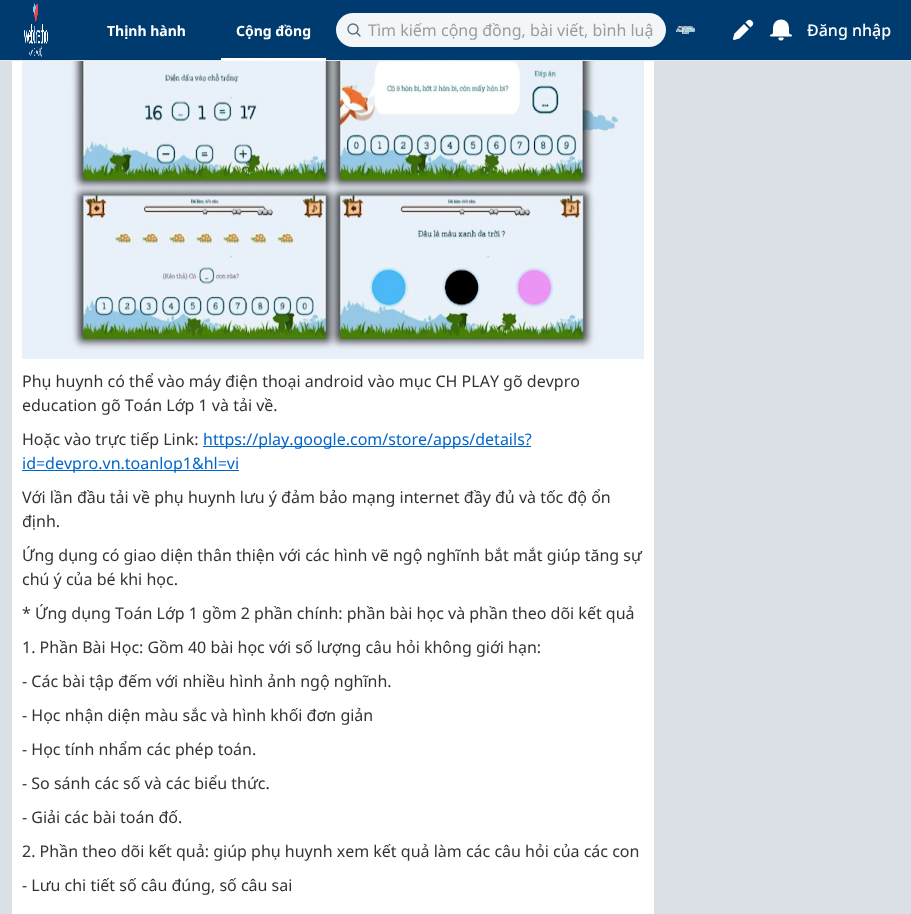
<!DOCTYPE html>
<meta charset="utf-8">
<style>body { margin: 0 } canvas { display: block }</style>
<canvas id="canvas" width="911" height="914"></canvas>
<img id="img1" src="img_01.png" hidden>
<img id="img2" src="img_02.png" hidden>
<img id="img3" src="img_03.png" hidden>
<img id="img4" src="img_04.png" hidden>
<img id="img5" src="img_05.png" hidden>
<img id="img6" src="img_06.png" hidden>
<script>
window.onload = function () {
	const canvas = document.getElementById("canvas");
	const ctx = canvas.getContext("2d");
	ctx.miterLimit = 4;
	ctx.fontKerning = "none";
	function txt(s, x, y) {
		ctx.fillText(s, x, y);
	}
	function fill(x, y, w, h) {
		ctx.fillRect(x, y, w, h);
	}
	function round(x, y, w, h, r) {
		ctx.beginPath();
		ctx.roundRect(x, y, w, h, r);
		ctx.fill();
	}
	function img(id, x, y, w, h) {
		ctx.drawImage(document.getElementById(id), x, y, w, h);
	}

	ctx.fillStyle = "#DAE0E6";
	fill(0, 0, 911, 914);
	ctx.fillStyle = "#003B70";
	fill(0, 0, 911, 60);
	img("img1", 24, 3, 24, 55);
	ctx.fillStyle = "#E8E8E8";
	fill(0, 60, 911, 1);
	ctx.fillStyle = "#FFFFFF";
	fill(221, 58, 105, 3);
	ctx.fillStyle = "#F3F6F9";
	round(336, 13, 330, 34, 17);
	img("img2", 347, 23, 14, 14);
	img("img3", 676, 26, 19, 8);
	img("img4", 733, 19, 21, 21);
	img("img5", 770, 19, 22, 22);
	ctx.fillStyle = "#FFFFFF";
	fill(12, 61, 642, 853);
	img("img6", 22, 61, 622, 298);
	ctx.fillStyle = "#0066CC";
	fill(203, 446, 328, 1);
	fill(22, 470, 217, 1);
	ctx.font = "bold 14px Noto Sans";
	ctx.fillStyle = "#FFFFFF";
	txt("Thịnh hành", 107, 36);
	txt("Cộng đồng", 236, 36);
	ctx.font = "16px Noto Sans";
	ctx.fillStyle = "#9B9B9B";
	txt("Tìm kiếm cộng đồng, bài viết, bình luậ", 368, 36);
	ctx.font = "500 16px Noto Sans";
	ctx.fillStyle = "#FFFFFF";
	txt("Đăng nhập", 807, 36);
	ctx.font = "16px Noto Sans";
	ctx.fillStyle = "#333333";
	txt("Phụ huynh có thể vào máy điện thoại android vào mục CH PLAY gõ devpro", 22, 387);
	txt("education gõ Toán Lớp 1 và tải về.", 22, 411);
	txt("Hoặc vào trực tiếp Link:", 22, 445);
	ctx.fillStyle = "#0066CC";
	txt("https://play.google.com/store/apps/details?", 203, 445);
	txt("id=devpro.vn.toanlop1&hl=vi", 22, 469);
	ctx.fillStyle = "#333333";
	txt("Với lần đầu tải về phụ huynh lưu ý đảm bảo mạng internet đầy đủ và tốc độ ổn", 22, 503);
	txt("định.", 22, 527);
	txt("Ứng dụng có giao diện thân thiện với các hình vẽ ngộ nghĩnh bắt mắt giúp tăng sự", 22, 561);
	txt("chú ý của bé khi học.", 22, 585);
	txt("* Ứng dụng Toán Lớp 1 gồm 2 phần chính: phần bài học và phần theo dõi kết quả", 22, 619);
	txt("1. Phần Bài Học: Gồm 40 bài học với số lượng câu hỏi không giới hạn:", 22, 653);
	txt("- Các bài tập đếm với nhiều hình ảnh ngộ nghĩnh.", 22, 687);
	txt("- Học nhận diện màu sắc và hình khối đơn giản", 22, 721);
	txt("- Học tính nhẩm các phép toán.", 22, 755);
	txt("- So sánh các số và các biểu thức.", 22, 789);
	txt("- Giải các bài toán đố.", 22, 823);
	txt("2. Phần theo dõi kết quả: giúp phụ huynh xem kết quả làm các câu hỏi của các con", 22, 857);
	txt("- Lưu chi tiết số câu đúng, số câu sai", 22, 891);
};
</script>
